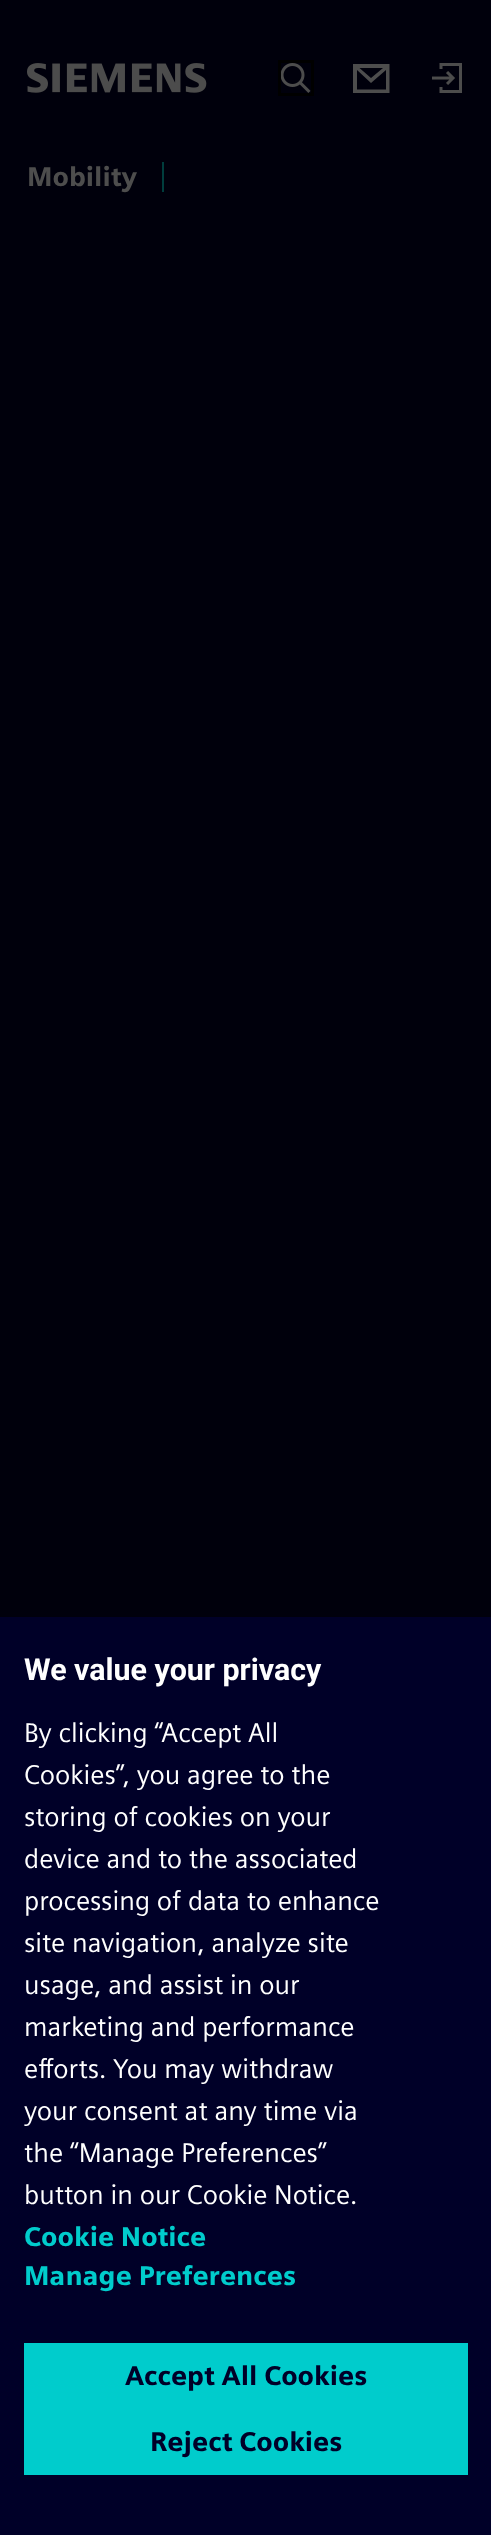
<!DOCTYPE html>
<meta charset="utf-8">
<style>body { margin: 0 } canvas { display: block }</style>
<canvas id="canvas" width="491" height="2535"></canvas>
<img id="img1" src="img_01.png" hidden>
<img id="img2" src="img_02.png" hidden>
<img id="img3" src="img_03.png" hidden>
<script>
window.onload = function () {
	const canvas = document.getElementById("canvas");
	const ctx = canvas.getContext("2d");
	ctx.miterLimit = 4;
	ctx.fontKerning = "normal";
	function txt(s, x, y) {
		ctx.fillText(s, x, y);
	}
	function fill(x, y, w, h) {
		ctx.fillRect(x, y, w, h);
	}
	function img(id, x, y, w, h) {
		ctx.drawImage(document.getElementById(id), x, y, w, h);
	}

	ctx.fillStyle = "#00000C";
	fill(0, 0, 491, 2535);
	img("img1", 27, 63, 180, 30);
	img("img2", 281, 63, 30, 30);
	ctx.strokeStyle = "#000000";
	ctx.lineWidth = 3;
	ctx.strokeRect(279.5, 61.5, 33, 33);
	ctx.fillStyle = "#4D4D4D";
	ctx.beginPath();
	ctx.moveTo(353, 64);
	ctx.lineTo(353, 93);
	ctx.lineTo(389.5, 93);
	ctx.lineTo(389.5, 64);
	ctx.closePath();
	ctx.moveTo(383, 68);
	ctx.lineTo(371, 78);
	ctx.lineTo(359.5, 68);
	ctx.closePath();
	ctx.moveTo(357, 70);
	ctx.lineTo(357, 89.5);
	ctx.lineTo(386, 89.5);
	ctx.lineTo(386, 70);
	ctx.lineTo(371, 83);
	ctx.closePath();
	ctx.fill("evenodd");
	img("img3", 432, 63, 30, 30);
	ctx.fillStyle = "#003D3D";
	fill(162, 162, 2, 30);
	ctx.fillStyle = "#000028";
	fill(0, 1617, 491, 918);
	ctx.fillStyle = "#00CCCC";
	fill(24, 2343, 444, 132);
	ctx.font = "bold 27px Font";
	ctx.fillStyle = "#4D4D4D";
	txt("Mobility", 27, 186);
	ctx.font = "bold 30.4px Roboto";
	ctx.fillStyle = "#FFFFFF";
	txt("We value your privacy", 24, 1680);
	ctx.font = "27px Font";
	txt("By clicking “Accept All", 24, 1742);
	txt("Cookies”, you agree to the", 24, 1784);
	txt("storing of cookies on your", 24, 1826);
	txt("device and to the associated", 24, 1868);
	txt("processing of data to enhance", 24, 1910);
	txt("site navigation, analyze site", 24, 1952);
	txt("usage, and assist in our", 24, 1994);
	txt("marketing and performance", 24, 2036);
	txt("efforts. You may withdraw", 24, 2078);
	txt("your consent at any time via", 24, 2120);
	txt("the “Manage Preferences”", 24, 2162);
	txt("button in our Cookie Notice.", 24, 2204);
	ctx.font = "bold 27px Font";
	ctx.fillStyle = "#00CCCC";
	txt("Cookie Notice", 24, 2246);
	txt("Manage Preferences", 24, 2285);
	ctx.fillStyle = "#000028";
	txt("Accept All Cookies", 125, 2385);
	txt("Reject Cookies", 150, 2451);
};
</script>
